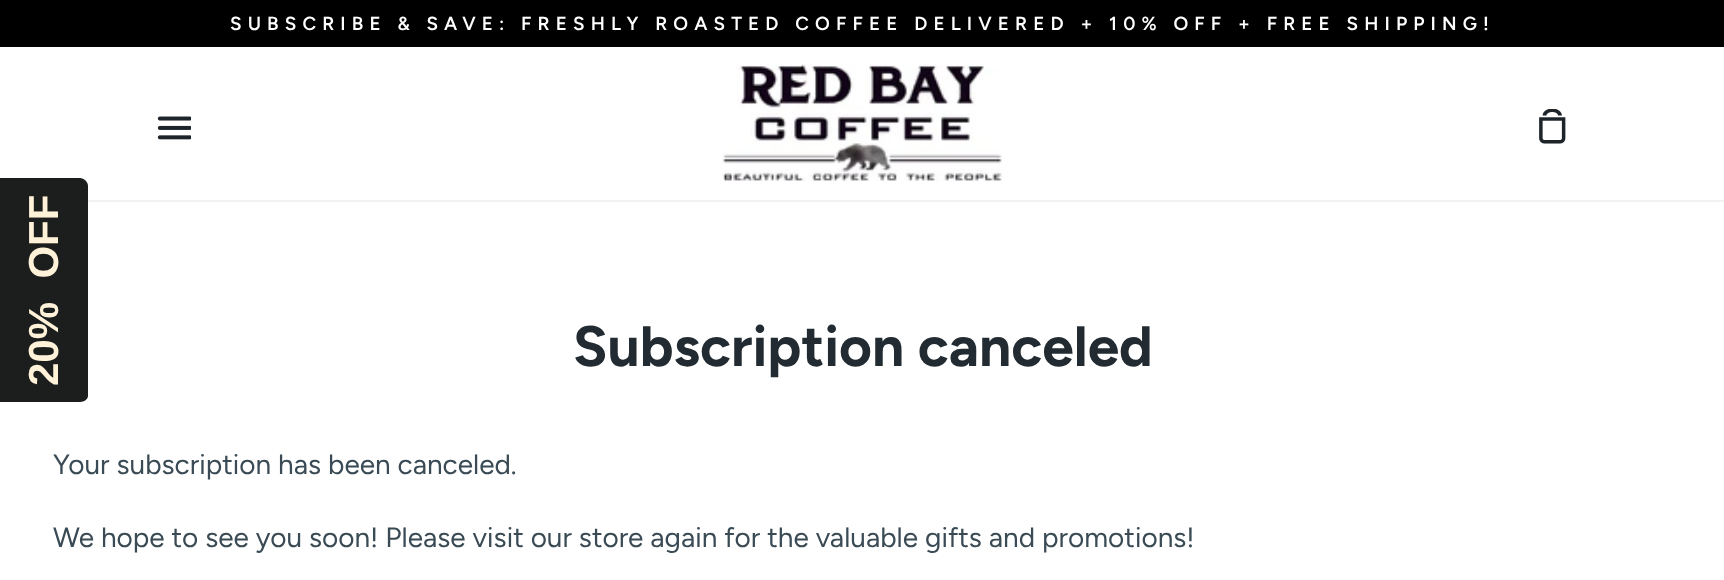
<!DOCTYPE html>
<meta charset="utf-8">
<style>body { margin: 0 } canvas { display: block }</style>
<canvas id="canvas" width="1724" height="580"></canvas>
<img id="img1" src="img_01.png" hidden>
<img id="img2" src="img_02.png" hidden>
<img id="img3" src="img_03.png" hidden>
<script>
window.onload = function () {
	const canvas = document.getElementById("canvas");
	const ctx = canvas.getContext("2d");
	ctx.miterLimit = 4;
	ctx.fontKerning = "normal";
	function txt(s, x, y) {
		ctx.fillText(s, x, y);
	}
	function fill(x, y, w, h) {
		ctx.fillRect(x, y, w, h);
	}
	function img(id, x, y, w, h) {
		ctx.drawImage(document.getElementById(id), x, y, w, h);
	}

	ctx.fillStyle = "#FFFFFF";
	fill(0, 0, 1724, 580);
	ctx.fillStyle = "#000000";
	fill(0, 0, 1724, 47);
	ctx.fillStyle = "#F2F2F2";
	fill(88, 200, 1636, 2);
	img("img1", 157, 116, 34, 24);
	img("img2", 722, 64, 280, 118);
	img("img3", 1539, 109, 27, 35);
	ctx.fillStyle = "#1C1D1D";
	ctx.beginPath();
	ctx.moveTo(0, 402);
	ctx.lineTo(0, 178);
	ctx.lineTo(80, 178);
	ctx.bezierCurveTo(84, 178, 88, 182, 88, 186);
	ctx.lineTo(88, 396);
	ctx.bezierCurveTo(88, 399, 84, 402, 80, 402);
	ctx.closePath();
	ctx.fill();
	ctx.letterSpacing = "6.12px";
	ctx.font = "600 18.9px Figtree";
	ctx.fillStyle = "#FFFFFF";
	txt("SUBSCRIBE & SAVE: FRESHLY ROASTED COFFEE DELIVERED + 10% OFF + FREE SHIPPING!", 230, 30);
	ctx.letterSpacing = "0px";
	ctx.font = "bold 42px Liberation Sans";
	ctx.fillStyle = "#FFF2D8";
	ctx.save();
	ctx.translate(58, 386);
	ctx.rotate(-90 * Math.PI / 180);
	ctx.fillText("20%  OFF", 0, 0);
	ctx.restore();
	ctx.font = "bold 56.75px Figtree";
	ctx.fillStyle = "#212B31";
	txt("Subscription canceled", 573, 366);
	ctx.font = "28px Figtree";
	ctx.fillStyle = "#3A4B55";
	txt("Your subscription has been canceled.", 53, 474);
	txt("We hope to see you soon! Please visit our store again for the valuable gifts and promotions!", 53, 547);
};
</script>
